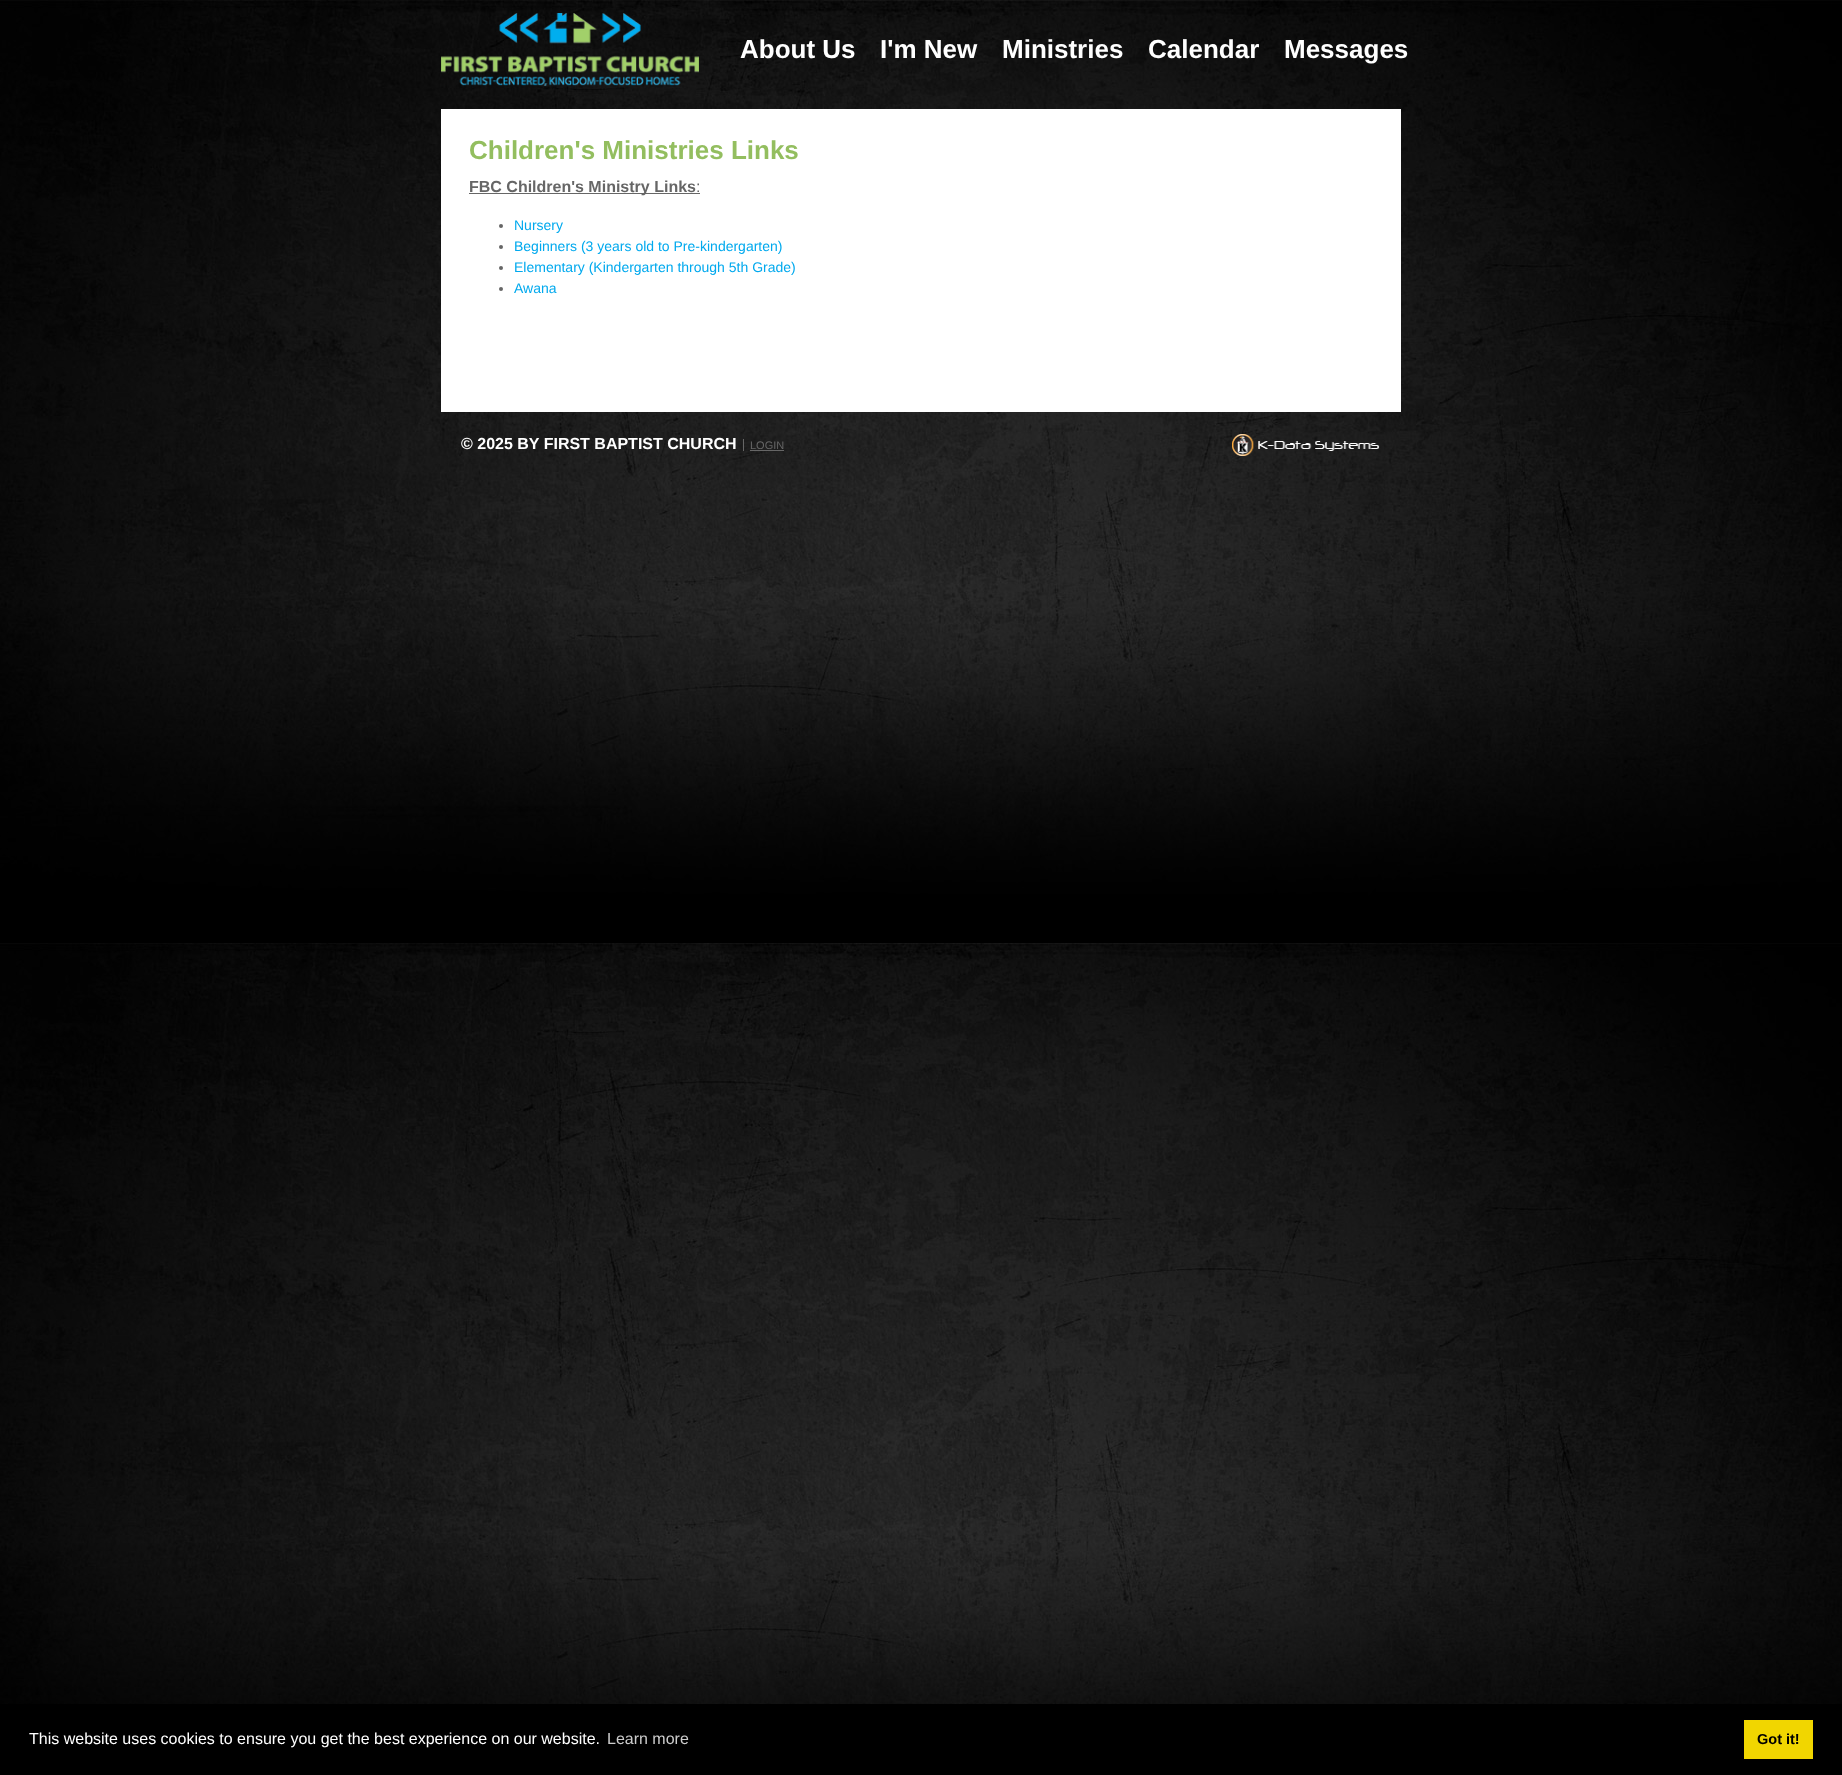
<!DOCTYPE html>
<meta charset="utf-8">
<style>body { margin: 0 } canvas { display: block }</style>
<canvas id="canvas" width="1842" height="1775"></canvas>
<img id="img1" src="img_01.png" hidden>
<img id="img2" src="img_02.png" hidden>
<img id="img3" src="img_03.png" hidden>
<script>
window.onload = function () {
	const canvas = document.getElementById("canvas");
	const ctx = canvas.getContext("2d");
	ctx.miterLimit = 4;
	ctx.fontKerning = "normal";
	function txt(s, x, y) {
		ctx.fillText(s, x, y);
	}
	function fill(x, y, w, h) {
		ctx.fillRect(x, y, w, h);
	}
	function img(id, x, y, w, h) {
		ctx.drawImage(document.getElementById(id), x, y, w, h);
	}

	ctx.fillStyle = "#FFFFFF";
	fill(0, 0, 1842, 1775);
	img("img1", 0, 0, 1842, 1704);
	img("img2", 441, 13, 258, 73);
	fill(441, 109, 960, 303);
	ctx.fillStyle = "#666666";
	fill(469, 193, 231, 1);
	ctx.beginPath();
	ctx.arc(501, 226, 2, 0, Math.PI * 2);
	ctx.fill();
	ctx.beginPath();
	ctx.arc(501, 247, 2, 0, Math.PI * 2);
	ctx.fill();
	ctx.beginPath();
	ctx.arc(501, 268, 2, 0, Math.PI * 2);
	ctx.fill();
	ctx.beginPath();
	ctx.arc(501, 289, 2, 0, Math.PI * 2);
	ctx.fill();
	fill(743, 439, 1, 12);
	fill(750, 450, 34, 1);
	img("img3", 1232, 434, 148, 22);
	ctx.fillStyle = "#000000";
	fill(0, 1704, 1842, 71);
	ctx.fillStyle = "#F1D600";
	fill(1744, 1720, 69, 39);
	ctx.font = "bold 26px Liberation Sans";
	ctx.fillStyle = "#FFFFFF";
	txt("About Us", 740, 58);
	txt("I'm New", 880, 58);
	txt("Ministries", 1002, 58);
	txt("Calendar", 1148, 58);
	txt("Messages", 1284, 58);
	ctx.fillStyle = "#93BE5F";
	txt("Children's Ministries Links", 469, 159);
	ctx.font = "bold 16px Liberation Sans";
	ctx.fillStyle = "#666666";
	txt("FBC Children's Ministry Links", 469, 192);
	ctx.font = "16px Liberation Sans";
	txt(":", 696, 192);
	ctx.font = "14px Liberation Sans";
	ctx.fillStyle = "#00A9EE";
	txt("Nursery", 514, 230);
	txt("Beginners (3 years old to Pre-kindergarten)", 514, 251);
	txt("Elementary (Kindergarten through 5th Grade)", 514, 272);
	txt("Awana", 514, 293);
	ctx.font = "bold 16px Liberation Sans";
	ctx.fillStyle = "#FFFFFF";
	txt("© 2025 BY FIRST BAPTIST CHURCH", 461, 449);
	ctx.font = "11px Liberation Sans";
	ctx.fillStyle = "#666666";
	txt("LOGIN", 750, 449);
	ctx.font = "16px Liberation Sans";
	ctx.fillStyle = "#FFFFFF";
	txt("This website uses cookies to ensure you get the best experience on our website.", 29, 1744);
	ctx.fillStyle = "#CCCCCC";
	txt("Learn more", 607, 1744);
	ctx.font = "bold 14.5px Liberation Sans";
	ctx.fillStyle = "#000000";
	txt("Got it!", 1757, 1744);
};
</script>
